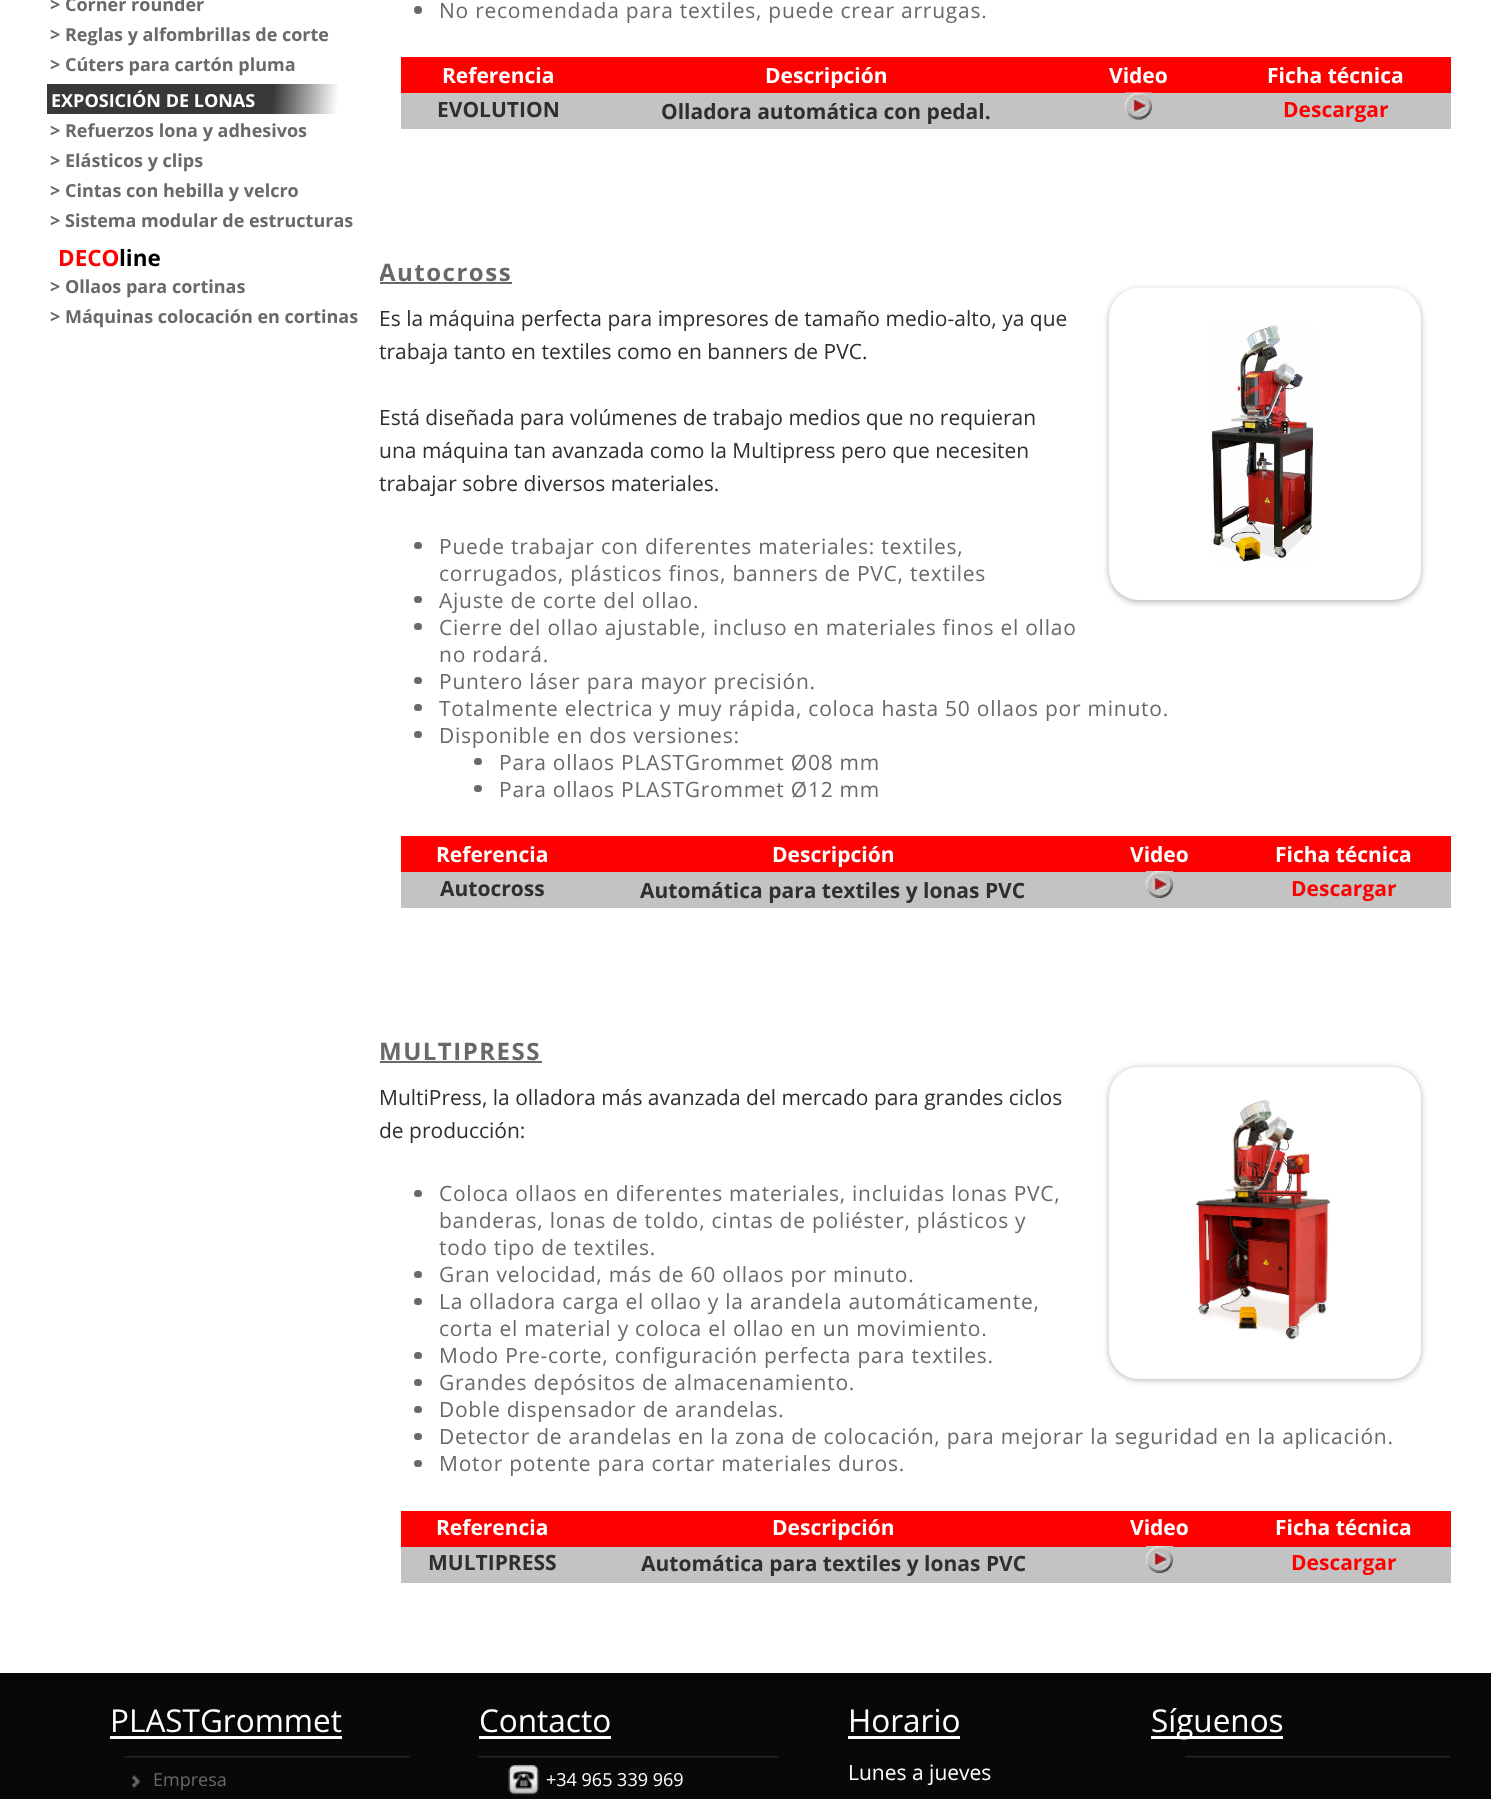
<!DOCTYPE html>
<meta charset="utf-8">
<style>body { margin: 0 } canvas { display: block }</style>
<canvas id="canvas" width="1491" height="1799"></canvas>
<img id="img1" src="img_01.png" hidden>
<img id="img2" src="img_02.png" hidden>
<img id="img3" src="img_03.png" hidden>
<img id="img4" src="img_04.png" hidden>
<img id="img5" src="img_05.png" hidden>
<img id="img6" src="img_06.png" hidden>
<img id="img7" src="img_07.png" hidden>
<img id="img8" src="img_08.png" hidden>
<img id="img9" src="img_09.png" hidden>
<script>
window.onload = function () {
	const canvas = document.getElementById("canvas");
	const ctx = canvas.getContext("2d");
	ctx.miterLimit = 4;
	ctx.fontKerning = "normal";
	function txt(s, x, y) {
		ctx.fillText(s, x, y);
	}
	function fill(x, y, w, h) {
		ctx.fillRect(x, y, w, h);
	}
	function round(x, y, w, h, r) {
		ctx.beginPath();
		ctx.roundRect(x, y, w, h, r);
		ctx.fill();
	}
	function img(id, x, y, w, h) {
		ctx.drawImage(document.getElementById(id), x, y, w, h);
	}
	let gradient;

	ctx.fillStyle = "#FFFFFF";
	fill(0, 0, 1491, 1799);
	gradient = ctx.createLinearGradient(47, 84, 369, 114);
	gradient.addColorStop(0.1, "#383838");
	gradient.addColorStop(0.7, "#383838");
	gradient.addColorStop(0.9, "#FFFFFF");
	ctx.fillStyle = gradient;
	fill(47, 84, 291, 30);
	ctx.fillStyle = "#696969";
	ctx.beginPath();
	ctx.arc(418, 10, 4, 0, Math.PI * 2);
	ctx.fill();
	ctx.fillStyle = "#FF0000";
	fill(401, 57, 1050, 36);
	ctx.fillStyle = "#C3C3C3";
	fill(401, 93, 1050, 36);
	img("img1", 1125, 92, 27, 28);
	ctx.fillStyle = "#696969";
	fill(380, 282, 132, 2);
	ctx.fillStyle = "rgba(0, 0, 0, 0.3)";
	ctx.filter = "blur(3px)";
	ctx.beginPath();
	ctx.roundRect(1109, 290, 312, 312, 30);
	ctx.fill();
	ctx.filter = "none";
	ctx.fillStyle = "#FFFFFF";
	ctx.beginPath();
	ctx.roundRect(1110, 289, 310, 310, 29);
	ctx.fill();
	ctx.strokeStyle = "#FFFFFF";
	ctx.lineWidth = 2;
	ctx.stroke();
	img("img2", 1211, 325, 103, 237);
	ctx.fillStyle = "#696969";
	round(414, 542, 8, 7, 3.5);
	round(414, 596, 8, 7, 3.5);
	round(414, 623, 8, 7, 3.5);
	round(414, 677, 8, 7, 3.5);
	round(414, 704, 8, 7, 3.5);
	round(414, 731, 8, 7, 3.5);
	round(474, 758, 8, 7, 3.5);
	round(474, 785, 8, 7, 3.5);
	ctx.fillStyle = "#FF0000";
	fill(401, 836, 1050, 36);
	ctx.fillStyle = "#C3C3C3";
	fill(401, 872, 1050, 36);
	img("img3", 1146, 871, 27, 27);
	ctx.fillStyle = "#696969";
	fill(380, 1061, 162, 2);
	ctx.fillStyle = "rgba(0, 0, 0, 0.3)";
	ctx.filter = "blur(3px)";
	ctx.beginPath();
	ctx.roundRect(1109, 1068, 312, 312, 30);
	ctx.fill();
	ctx.filter = "none";
	ctx.fillStyle = "#FFFFFF";
	ctx.beginPath();
	ctx.roundRect(1110, 1068, 310, 310, 29);
	ctx.fill();
	ctx.stroke();
	img("img4", 1196, 1100, 215, 251);
	ctx.fillStyle = "#696969";
	round(414, 1190, 8, 7, 3.5);
	round(414, 1271, 8, 7, 3.5);
	round(414, 1298, 8, 7, 3.5);
	round(414, 1352, 8, 7, 3.5);
	round(414, 1379, 8, 7, 3.5);
	round(414, 1406, 8, 7, 3.5);
	round(414, 1433, 8, 7, 3.5);
	round(414, 1460, 8, 7, 3.5);
	ctx.fillStyle = "#FF0000";
	fill(401, 1511, 1050, 36);
	ctx.fillStyle = "#C3C3C3";
	fill(401, 1547, 1050, 36);
	img("img3", 1146, 1546, 27, 27);
	ctx.fillStyle = "#080808";
	fill(0, 1673, 1491, 126);
	ctx.fillStyle = "#FFFFFF";
	fill(110, 1736, 232, 3);
	img("img5", 124, 1756, 286, 2);
	img("img6", 132, 1775, 8, 13);
	fill(479, 1736, 132, 3);
	img("img7", 478, 1756, 301, 2);
	img("img8", 508, 1765, 31, 30);
	fill(848, 1736, 112, 3);
	fill(1151, 1736, 132, 3);
	img("img9", 1185, 1756, 266, 2);
	ctx.font = "bold 18px Open Sans";
	ctx.fillStyle = "#696969";
	txt("> Corner rounder", 50, 11);
	txt("> Reglas y alfombrillas de corte", 50, 41);
	txt("> Cúters para cartón pluma", 50, 71);
	ctx.fillStyle = "#FFFFFF";
	txt("EXPOSICIÓN DE LONAS", 51, 107);
	ctx.fillStyle = "#696969";
	txt("> Refuerzos lona y adhesivos", 50, 137);
	txt("> Elásticos y clips", 50, 167);
	txt("> Cintas con hebilla y velcro", 50, 197);
	txt("> Sistema modular de estructuras", 50, 227);
	ctx.font = "bold 22.5px Open Sans";
	ctx.fillStyle = "#FF0000";
	txt("DECO", 58, 266);
	ctx.fillStyle = "#000000";
	txt("line", 119, 266);
	ctx.font = "bold 18px Open Sans";
	ctx.fillStyle = "#696969";
	txt("> Ollaos para cortinas", 50, 293);
	txt("> Máquinas colocación en cortinas", 50, 323);
	ctx.letterSpacing = "0.75px";
	ctx.font = "21px Open Sans";
	txt("No recomendada para textiles, puede crear arrugas.", 439, 18);
	ctx.letterSpacing = "0px";
	ctx.font = "bold 21px Open Sans";
	ctx.fillStyle = "#FFFFFF";
	txt("Referencia", 442, 83);
	txt("Descripción", 765, 83);
	txt("Video", 1109, 83);
	txt("Ficha técnica", 1267, 83);
	ctx.fillStyle = "#2F2F2F";
	txt("EVOLUTION", 437, 117);
	txt("Olladora automática con pedal.", 661, 119);
	ctx.fillStyle = "#FF0000";
	txt("Descargar", 1283, 117);
	ctx.save();
	ctx.beginPath();
	ctx.rect(380, 258, 1071, 725);
	ctx.clip();
	ctx.letterSpacing = "1.5px";
	ctx.font = "bold 24px Open Sans";
	ctx.fillStyle = "#696969";
	txt("Autocross", 379, 281);
	ctx.restore();
	ctx.font = "21px Open Sans";
	ctx.fillStyle = "#2F2F2F";
	txt("Es la máquina perfecta para impresores de tamaño medio-alto, ya que", 379, 326);
	txt("trabaja tanto en textiles como en banners de PVC.", 379, 359);
	txt("Está diseñada para volúmenes de trabajo medios que no requieran", 379, 425);
	txt("una máquina tan avanzada como la Multipress pero que necesiten", 379, 458);
	txt("trabajar sobre diversos materiales.", 379, 491);
	ctx.letterSpacing = "0.75px";
	ctx.fillStyle = "#696969";
	txt("Puede trabajar con diferentes materiales: textiles,", 439, 554);
	txt("corrugados, plásticos finos, banners de PVC, textiles", 439, 581);
	txt("Ajuste de corte del ollao.", 439, 608);
	txt("Cierre del ollao ajustable, incluso en materiales finos el ollao", 439, 635);
	txt("no rodará.", 439, 662);
	txt("Puntero láser para mayor precisión.", 439, 689);
	txt("Totalmente electrica y muy rápida, coloca hasta 50 ollaos por minuto.", 439, 716);
	txt("Disponible en dos versiones:", 439, 743);
	txt("Para ollaos PLASTGrommet Ø08 mm", 499, 770);
	txt("Para ollaos PLASTGrommet Ø12 mm", 499, 797);
	ctx.letterSpacing = "0px";
	ctx.font = "bold 21px Open Sans";
	ctx.fillStyle = "#FFFFFF";
	txt("Referencia", 436, 862);
	txt("Descripción", 772, 862);
	txt("Video", 1130, 862);
	txt("Ficha técnica", 1275, 862);
	ctx.fillStyle = "#2F2F2F";
	txt("Autocross", 440, 896);
	txt("Automática para textiles y lonas PVC", 640, 898);
	ctx.fillStyle = "#FF0000";
	txt("Descargar", 1291, 896);
	ctx.letterSpacing = "1.5px";
	ctx.font = "bold 24px Open Sans";
	ctx.fillStyle = "#696969";
	txt("MULTIPRESS", 379, 1060);
	ctx.letterSpacing = "0px";
	ctx.font = "21px Open Sans";
	ctx.fillStyle = "#2F2F2F";
	txt("MultiPress, la olladora más avanzada del mercado para grandes ciclos", 379, 1105);
	txt("de producción:", 379, 1138);
	ctx.letterSpacing = "0.75px";
	ctx.fillStyle = "#696969";
	txt("Coloca ollaos en diferentes materiales, incluidas lonas PVC,", 439, 1201);
	txt("banderas, lonas de toldo, cintas de poliéster, plásticos y", 439, 1228);
	txt("todo tipo de textiles.", 439, 1255);
	txt("Gran velocidad, más de 60 ollaos por minuto.", 439, 1282);
	txt("La olladora carga el ollao y la arandela automáticamente,", 439, 1309);
	txt("corta el material y coloca el ollao en un movimiento.", 439, 1336);
	txt("Modo Pre-corte, configuración perfecta para textiles.", 439, 1363);
	txt("Grandes depósitos de almacenamiento.", 439, 1390);
	txt("Doble dispensador de arandelas.", 439, 1417);
	txt("Detector de arandelas en la zona de colocación, para mejorar la seguridad en la aplicación.", 439, 1444);
	txt("Motor potente para cortar materiales duros.", 439, 1471);
	ctx.letterSpacing = "0px";
	ctx.font = "bold 21px Open Sans";
	ctx.fillStyle = "#FFFFFF";
	txt("Referencia", 436, 1535);
	txt("Descripción", 772, 1535);
	txt("Video", 1130, 1535);
	txt("Ficha técnica", 1275, 1535);
	ctx.fillStyle = "#2F2F2F";
	txt("MULTIPRESS", 428, 1570);
	txt("Automática para textiles y lonas PVC", 641, 1571);
	ctx.fillStyle = "#FF0000";
	txt("Descargar", 1291, 1570);
	ctx.font = "31.5px Open Sans";
	ctx.fillStyle = "#FFFFFF";
	txt("PLASTGrommet", 110, 1732);
	ctx.font = "18px Open Sans";
	ctx.fillStyle = "#696969";
	txt("Empresa", 153, 1786);
	ctx.font = "31.5px Open Sans";
	ctx.fillStyle = "#FFFFFF";
	txt("Contacto", 479, 1732);
	ctx.font = "18px Open Sans";
	txt("+34 965 339 969", 546, 1786);
	ctx.font = "31.5px Open Sans";
	txt("Horario", 848, 1732);
	ctx.font = "21px Open Sans";
	txt("Lunes a jueves", 848, 1780);
	ctx.font = "31.5px Open Sans";
	txt("Síguenos", 1151, 1732);
};
</script>
